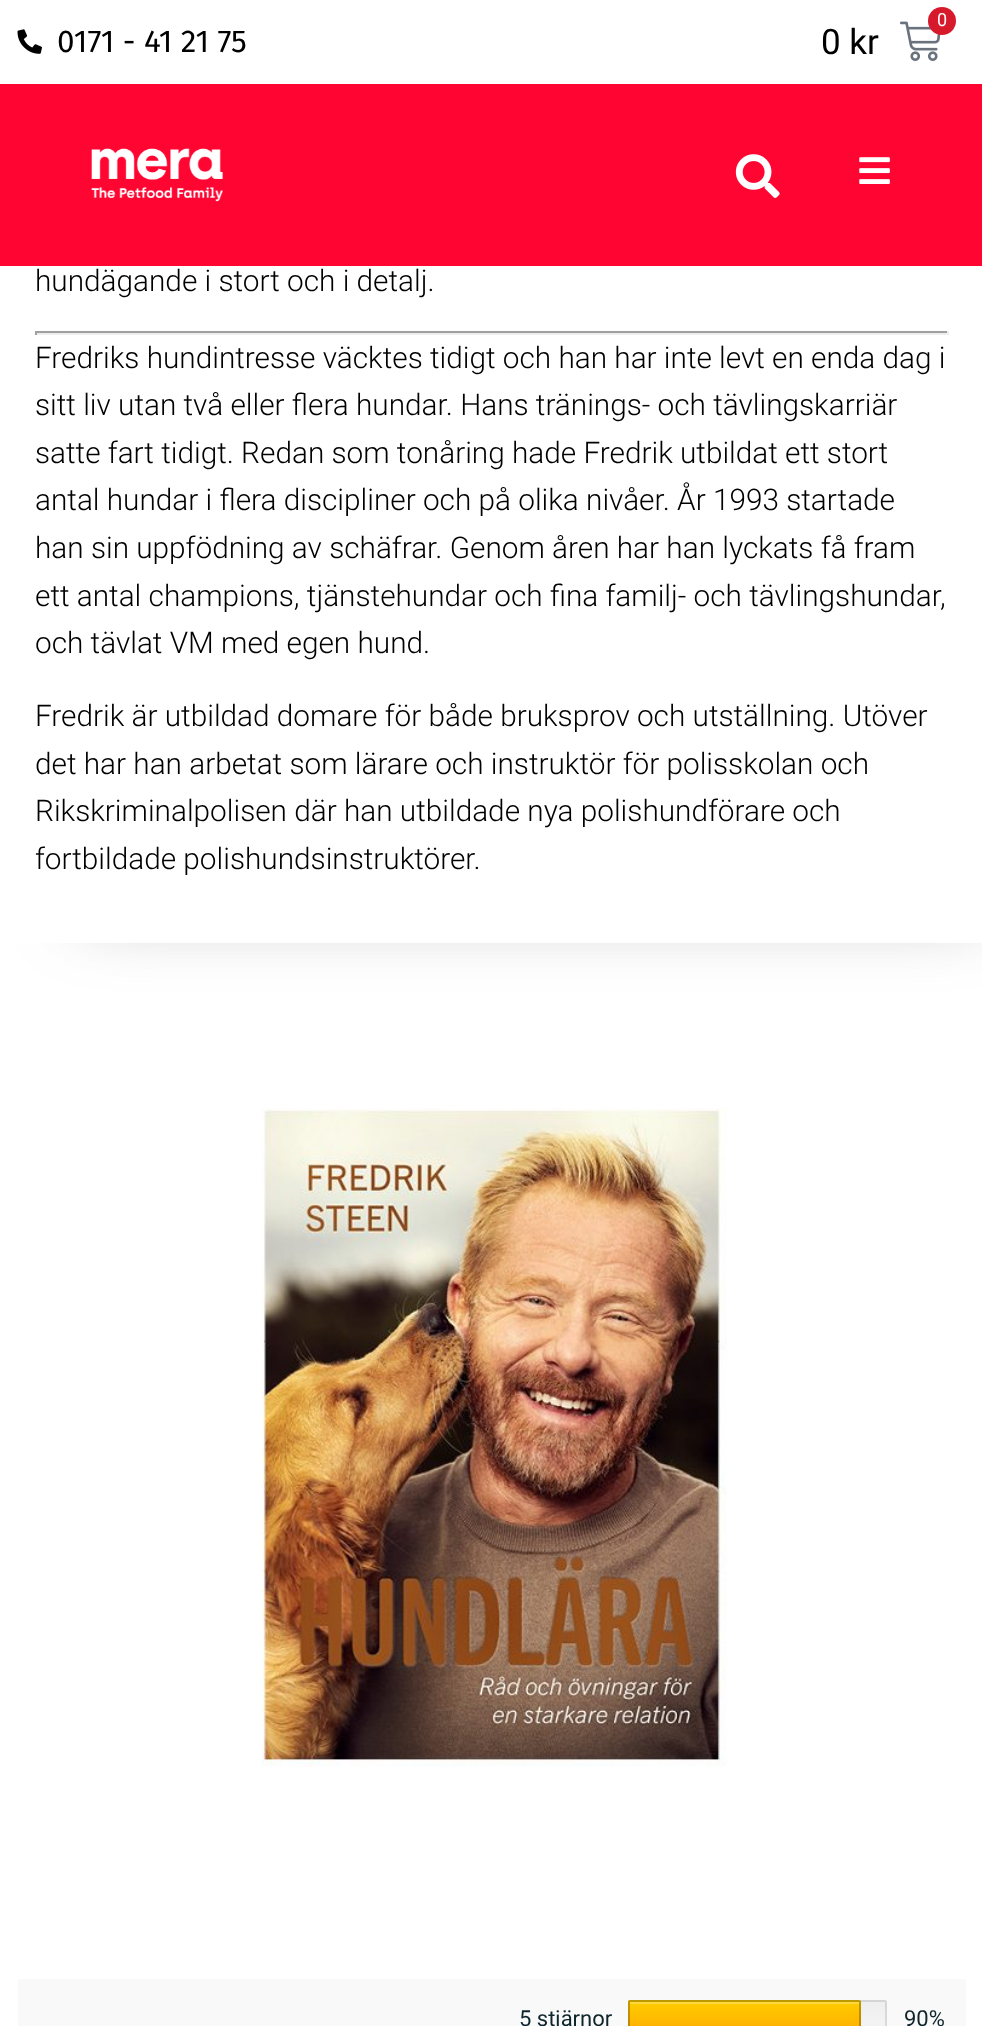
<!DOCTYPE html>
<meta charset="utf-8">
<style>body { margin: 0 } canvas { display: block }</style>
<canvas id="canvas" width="982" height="2026"></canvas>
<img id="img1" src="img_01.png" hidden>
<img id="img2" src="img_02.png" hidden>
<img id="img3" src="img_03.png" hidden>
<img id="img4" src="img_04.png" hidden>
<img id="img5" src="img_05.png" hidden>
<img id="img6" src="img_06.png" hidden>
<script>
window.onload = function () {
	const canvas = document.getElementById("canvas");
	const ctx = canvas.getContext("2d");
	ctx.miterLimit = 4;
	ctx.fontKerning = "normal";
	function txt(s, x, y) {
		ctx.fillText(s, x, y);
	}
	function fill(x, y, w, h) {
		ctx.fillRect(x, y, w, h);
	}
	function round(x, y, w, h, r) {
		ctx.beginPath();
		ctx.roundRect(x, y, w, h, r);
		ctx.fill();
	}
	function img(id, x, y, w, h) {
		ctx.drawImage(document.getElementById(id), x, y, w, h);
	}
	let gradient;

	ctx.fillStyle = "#FFFFFF";
	fill(0, 0, 982, 2026);
	ctx.fillStyle = "rgba(96, 96, 95, 0.58)";
	ctx.filter = "blur(36px)";
	ctx.beginPath();
	ctx.rect(82, -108, 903, 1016);
	ctx.fill();
	ctx.filter = "none";
	ctx.fillStyle = "#FFFFFF";
	round(0, -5, 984, 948, 5);
	ctx.fillStyle = "#FF0532";
	fill(0, 84, 982, 182);
	img("img1", 17, 29, 25, 25);
	img("img2", 900, 21, 41, 40);
	ctx.fillStyle = "#D6192B";
	ctx.beginPath();
	ctx.arc(942, 21, 14, 0, Math.PI * 2);
	ctx.fill();
	img("img3", 91, 148, 133, 54);
	img("img4", 735, 154, 45, 44);
	img("img5", 859, 157, 31, 27);
	ctx.fillStyle = "#9F9F9F";
	fill(35, 331, 914, 2);
	ctx.fillStyle = "#EEEEEE";
	fill(947, 331, 2, 4);
	fill(35, 333, 914, 2);
	ctx.fillStyle = "#9F9F9F";
	fill(35, 331, 2, 4);
	img("img6", 261, 1108, 466, 659);
	ctx.fillStyle = "#F9F9F9";
	fill(18, 1979, 948, 47);
	gradient = ctx.createLinearGradient(758, 2000, 758, 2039);
	gradient.addColorStop(0, "#EEEEEE");
	gradient.addColorStop(1, "#F6F6F6");
	ctx.fillStyle = gradient;
	round(628, 2000, 259, 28, 2);
	ctx.beginPath();
	ctx.roundRect(629, 2001, 257, 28, 1);
	ctx.strokeStyle = "rgba(0, 0, 0, 0.1)";
	ctx.lineWidth = 2;
	ctx.stroke();
	gradient = ctx.createLinearGradient(745, 2000, 745, 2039);
	gradient.addColorStop(0, "#FFCE00");
	gradient.addColorStop(1, "#FFA700");
	ctx.fillStyle = gradient;
	round(628, 2000, 233, 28, 2);
	ctx.beginPath();
	ctx.roundRect(629, 2001, 231, 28, 1);
	ctx.strokeStyle = "rgba(0, 0, 0, 0.25)";
	ctx.stroke();
	ctx.fillStyle = "#FFD840";
	fill(630, 2002, 229, 2);
	ctx.font = "31.5px Fira Sans";
	ctx.fillStyle = "#000000";
	txt("0171 - 41 21 75", 57, 52);
	ctx.font = "18px Roboto";
	ctx.fillStyle = "#FFFFFF";
	txt("0", 937, 26);
	ctx.font = "35px Roboto";
	ctx.fillStyle = "#000000";
	txt("0 kr", 821, 54);
	ctx.font = "300 29.75px Roboto";
	txt("hundägande i stort och i detalj.", 35, 291);
	txt("Fredriks hundintresse väcktes tidigt och han har inte levt en enda dag i", 35, 368);
	txt("sitt liv utan två eller flera hundar. Hans tränings- och tävlingskarriär", 35, 415);
	txt("satte fart tidigt. Redan som tonåring hade Fredrik utbildat ett stort", 35, 463);
	txt("antal hundar i flera discipliner och på olika nivåer. År 1993 startade", 35, 510);
	txt("han sin uppfödning av schäfrar. Genom åren har han lyckats få fram", 35, 558);
	txt("ett antal champions, tjänstehundar och fina familj- och tävlingshundar,", 35, 606);
	txt("och tävlat VM med egen hund.", 35, 653);
	txt("Fredrik är utbildad domare för både bruksprov och utställning. Utöver", 35, 726);
	txt("det har han arbetat som lärare och instruktör för polisskolan och", 35, 774);
	txt("Rikskriminalpolisen där han utbildade nya polishundförare och", 35, 821);
	txt("fortbildade polishundsinstruktörer.", 35, 869);
	ctx.font = "22px Roboto";
	ctx.fillStyle = "#0E252C";
	txt("5 stjärnor", 519, 2026);
	txt("90%", 904, 2026);
};
</script>
